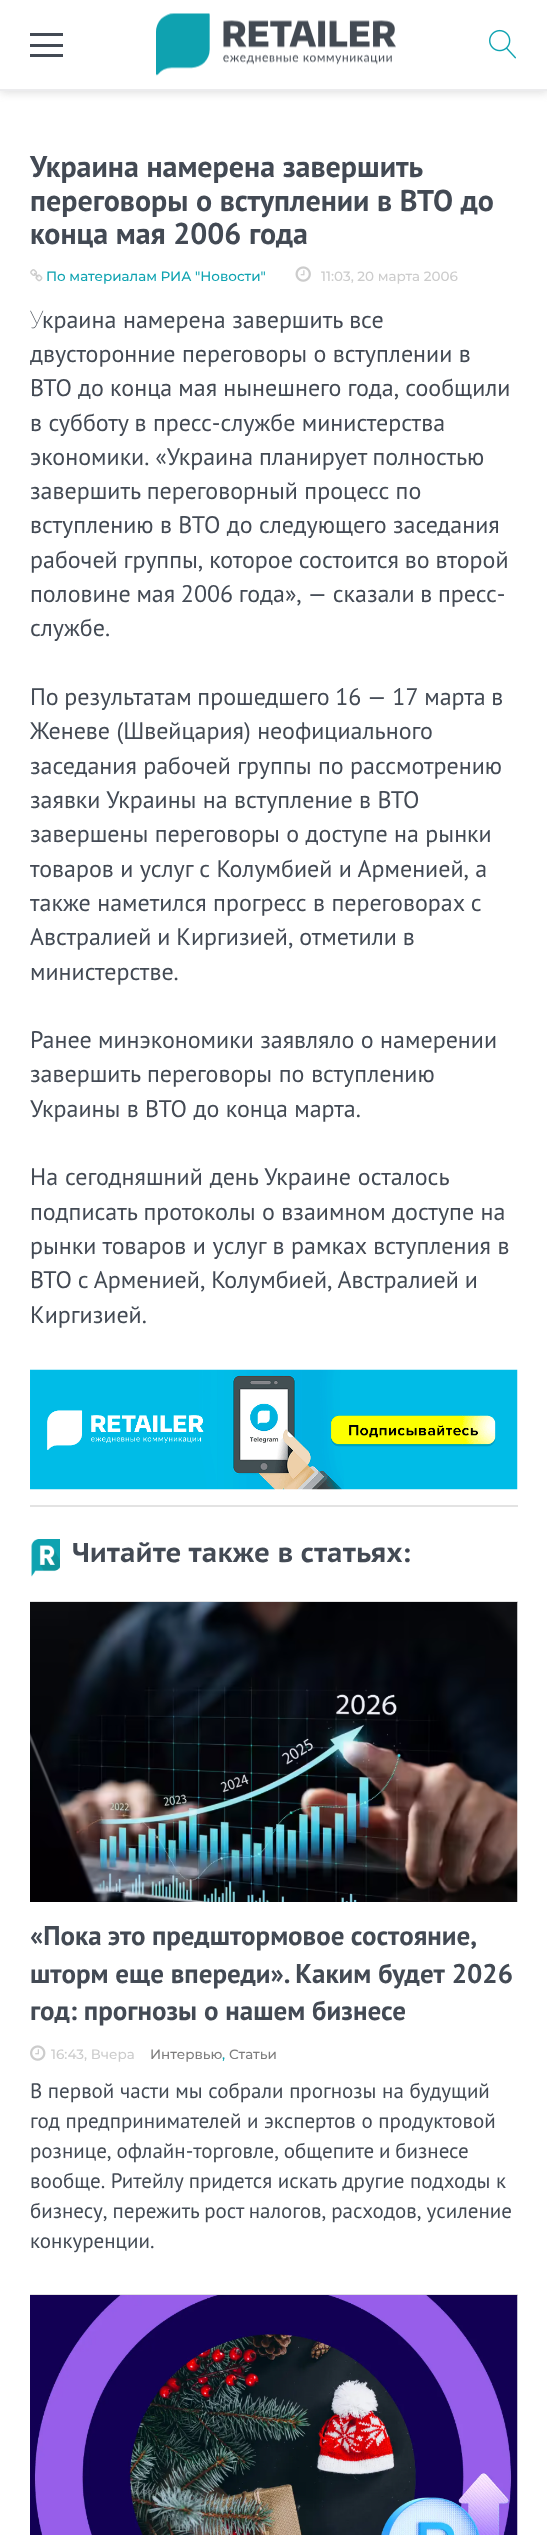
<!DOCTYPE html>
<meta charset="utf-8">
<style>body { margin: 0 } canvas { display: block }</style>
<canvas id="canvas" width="547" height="2535"></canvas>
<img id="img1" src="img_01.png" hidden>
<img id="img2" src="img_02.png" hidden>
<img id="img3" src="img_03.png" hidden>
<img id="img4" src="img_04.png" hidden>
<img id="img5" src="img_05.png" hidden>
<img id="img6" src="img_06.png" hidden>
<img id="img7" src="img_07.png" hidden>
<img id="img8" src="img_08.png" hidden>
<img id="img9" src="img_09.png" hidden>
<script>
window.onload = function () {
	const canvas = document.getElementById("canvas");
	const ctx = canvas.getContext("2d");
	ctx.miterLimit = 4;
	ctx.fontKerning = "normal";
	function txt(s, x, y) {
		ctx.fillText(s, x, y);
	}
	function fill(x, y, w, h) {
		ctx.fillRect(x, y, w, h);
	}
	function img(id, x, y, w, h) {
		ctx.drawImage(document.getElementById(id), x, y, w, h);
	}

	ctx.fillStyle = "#FFFFFF";
	fill(0, 0, 547, 2535);
	ctx.fillStyle = "rgba(136, 136, 136, 0.26)";
	ctx.filter = "blur(4.5px)";
	ctx.beginPath();
	ctx.rect(0, 3, 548, 90);
	ctx.fill();
	ctx.filter = "none";
	ctx.fillStyle = "#FFFFFF";
	fill(0, 0, 547, 89);
	ctx.fillStyle = "#ECECEE";
	fill(0, 89, 547, 2);
	ctx.fillStyle = "#434A54";
	fill(30, 44, 33, 3);
	fill(30, 33, 33, 3);
	fill(30, 54, 33, 3);
	img("img1", 156, 13, 240, 63);
	img("img2", 489, 29, 27, 30);
	img("img3", 30, 269, 13, 13);
	img("img4", 295, 266, 16, 16);
	img("img5", 30, 1369, 488, 121);
	ctx.fillStyle = "#E3E3E3";
	fill(30, 1505, 488, 2);
	img("img6", 31, 1539, 29, 38);
	fill(30, 1601, 488, 2);
	img("img7", 30, 1602, 488, 300);
	img("img8", 30, 2045, 16, 16);
	fill(30, 2294, 488, 2);
	img("img9", 30, 2295, 488, 240);
	ctx.font = "bold 30px PT Sans";
	ctx.fillStyle = "#434A54";
	txt("Украина намерена завершить", 30, 177);
	txt("переговоры о вступлении в ВТО до", 30, 211);
	txt("конца мая 2006 года", 30, 244);
	ctx.font = "100 13.5px Montserrat";
	ctx.fillStyle = "#0FA3B1";
	txt("По материалам РИА \"Новости\"", 46, 281);
	ctx.fillStyle = "#CCCCCC";
	txt("11:03, 20 марта 2006", 321, 281);
	ctx.font = "100 24px Noto Sans";
	ctx.fillStyle = "#434A54";
	txt("У", 30, 328);
	ctx.wordSpacing = "0.25px";
	ctx.font = "24px PT Sans";
	txt("краина намерена завершить все", 42, 328);
	ctx.wordSpacing = "0px";
	txt("двусторонние переговоры о вступлении в", 30, 362);
	ctx.wordSpacing = "-0.25px";
	txt("ВТО до конца мая нынешнего года, сообщили", 30, 396);
	ctx.wordSpacing = "0px";
	txt("в субботу в пресс-службе министерства", 30, 431);
	ctx.wordSpacing = "-0.5px";
	txt("экономики. «Украина планирует полностью", 30, 465);
	ctx.wordSpacing = "0px";
	txt("завершить переговорный процесс по", 30, 499);
	txt("вступлению в ВТО до следующего заседания", 30, 533);
	ctx.wordSpacing = "-0.5px";
	txt("рабочей группы, которое состоится во второй", 30, 568);
	ctx.wordSpacing = "-0.75px";
	txt("половине мая 2006 года», — сказали в пресс-", 30, 602);
	ctx.wordSpacing = "0px";
	txt("службе.", 30, 636);
	ctx.wordSpacing = "-0.75px";
	txt("По результатам прошедшего 16 — 17 марта в", 30, 705);
	ctx.wordSpacing = "0px";
	txt("Женеве (Швейцария) неофициального", 30, 739);
	txt("заседания рабочей группы по рассмотрению", 30, 774);
	txt("заявки Украины на вступление в ВТО", 30, 808);
	txt("завершены переговоры о доступе на рынки", 30, 842);
	txt("товаров и услуг с Колумбией и Арменией, а", 30, 877);
	txt("также наметился прогресс в переговорах с", 30, 911);
	ctx.wordSpacing = "-0.5px";
	txt("Австралией и Киргизией, отметили в", 30, 945);
	ctx.wordSpacing = "0px";
	txt("министерстве.", 30, 980);
	txt("Ранее минэкономики заявляло о намерении", 30, 1048);
	ctx.wordSpacing = "0.25px";
	txt("завершить переговоры по вступлению", 30, 1082);
	ctx.wordSpacing = "0px";
	txt("Украины в ВТО до конца марта.", 30, 1117);
	ctx.wordSpacing = "0.5px";
	txt("На сегодняшний день Украине осталось", 30, 1185);
	ctx.wordSpacing = "0px";
	txt("подписать протоколы о взаимном доступе на", 30, 1220);
	ctx.wordSpacing = "0.25px";
	txt("рынки товаров и услуг в рамках вступления в", 30, 1254);
	ctx.wordSpacing = "-0.5px";
	txt("ВТО с Арменией, Колумбией, Австралией и", 30, 1288);
	ctx.wordSpacing = "0px";
	txt("Киргизией.", 30, 1323);
	ctx.font = "bold 27px PT Sans Caption";
	txt("Читайте также в статьях:", 72, 1562);
	ctx.wordSpacing = "-0.5px";
	ctx.font = "bold 27px PT Sans";
	txt("«Пока это предштормовое состояние,", 30, 1945);
	ctx.wordSpacing = "0px";
	txt("шторм еще впереди». Каким будет 2026", 30, 1983);
	txt("год: прогнозы о нашем бизнесе", 30, 2020);
	ctx.font = "100 13.5px Montserrat";
	ctx.fillStyle = "#CCCCCC";
	txt("16:43, Вчера", 51, 2059);
	ctx.fillStyle = "#7E7D7D";
	txt("Интервью", 150, 2059);
	ctx.fillStyle = "#0FA3B1";
	txt(",", 222, 2059);
	ctx.fillStyle = "#7E7D7D";
	txt("Статьи", 229, 2059);
	ctx.font = "21px PT Sans";
	ctx.fillStyle = "#434A54";
	txt("В первой части мы собрали прогнозы на будущий", 30, 2098);
	txt("год предпринимателей и экспертов о продуктовой", 30, 2128);
	ctx.wordSpacing = "-0.75px";
	txt("рознице, офлайн-торговле, общепите и бизнесе", 30, 2158);
	ctx.wordSpacing = "0px";
	txt("вообще. Ритейлу придется искать другие подходы к", 30, 2188);
	ctx.wordSpacing = "-0.5px";
	txt("бизнесу, пережить рост налогов, расходов, усиление", 30, 2218);
	ctx.wordSpacing = "0px";
	txt("конкуренции.", 30, 2248);
};
</script>
